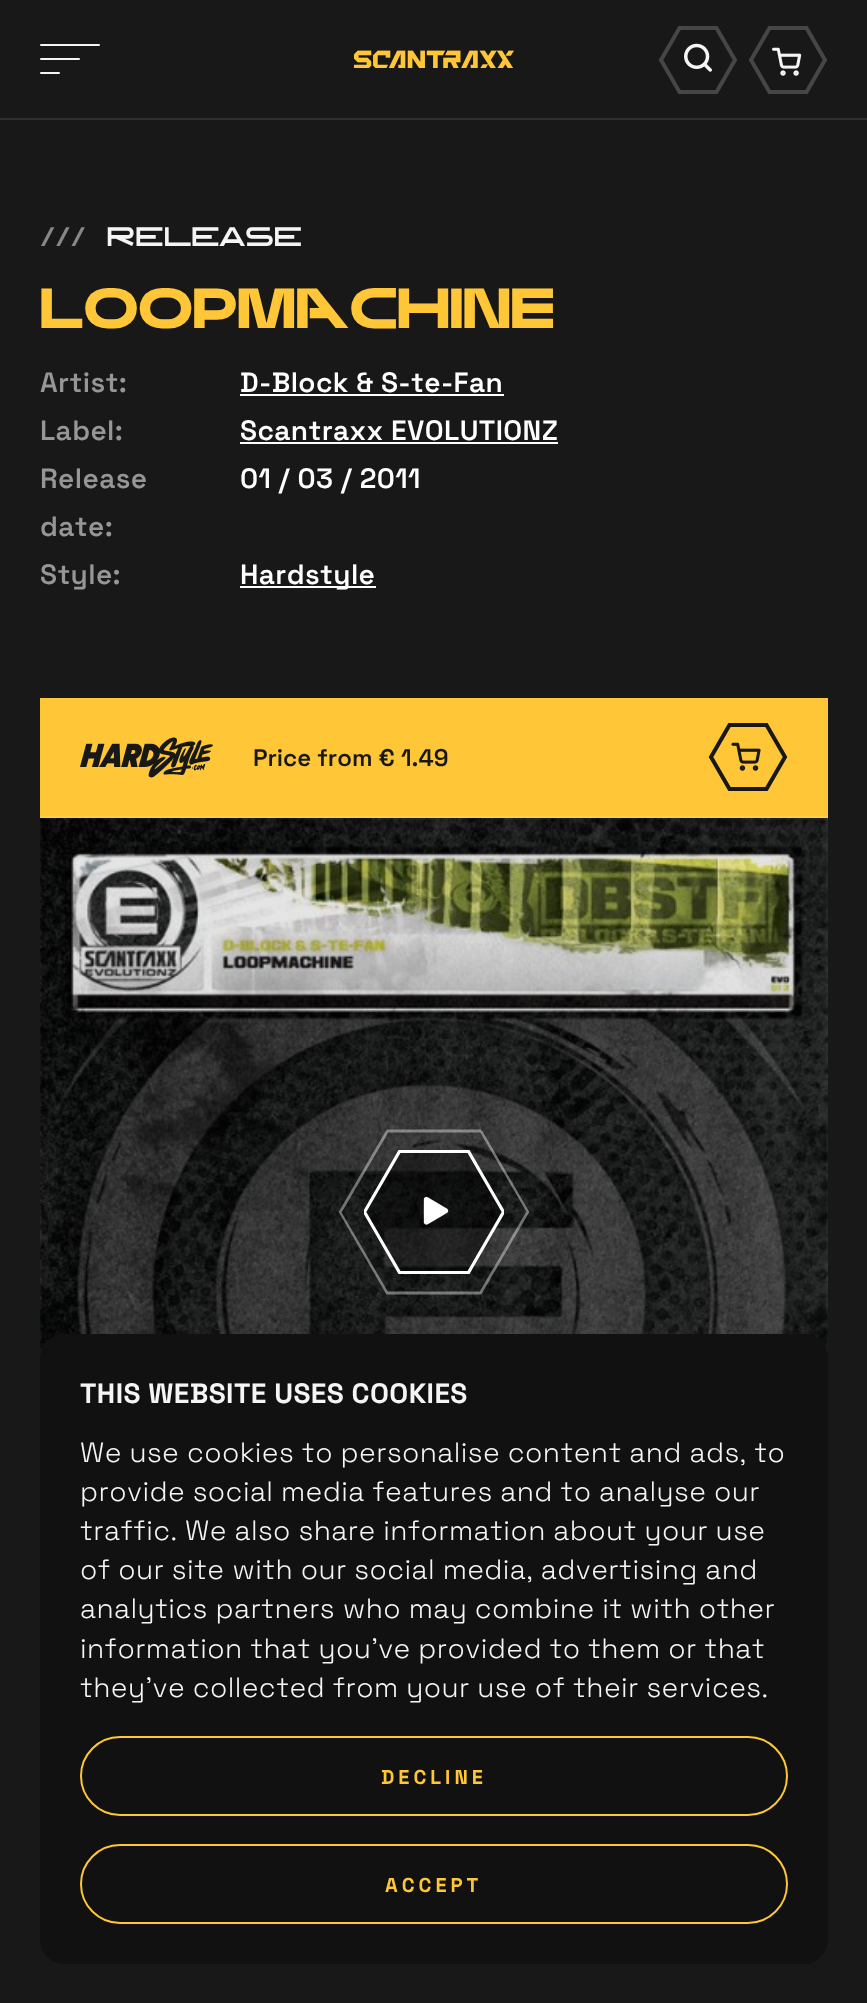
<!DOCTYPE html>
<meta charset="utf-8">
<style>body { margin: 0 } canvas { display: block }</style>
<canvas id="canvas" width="867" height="2003"></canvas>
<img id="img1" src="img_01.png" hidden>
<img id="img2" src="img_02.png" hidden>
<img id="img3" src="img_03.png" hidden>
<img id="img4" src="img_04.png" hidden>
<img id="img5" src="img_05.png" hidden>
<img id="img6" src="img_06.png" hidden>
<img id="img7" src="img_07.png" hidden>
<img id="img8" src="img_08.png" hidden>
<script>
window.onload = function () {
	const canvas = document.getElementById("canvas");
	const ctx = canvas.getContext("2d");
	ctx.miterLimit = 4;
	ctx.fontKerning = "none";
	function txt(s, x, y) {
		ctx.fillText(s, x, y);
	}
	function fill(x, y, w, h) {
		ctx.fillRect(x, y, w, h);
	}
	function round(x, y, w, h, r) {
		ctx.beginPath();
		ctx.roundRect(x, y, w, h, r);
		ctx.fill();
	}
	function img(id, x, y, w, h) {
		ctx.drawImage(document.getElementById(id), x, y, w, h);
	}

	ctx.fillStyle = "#181818";
	fill(0, 0, 867, 2003);
	ctx.fillStyle = "#2F2F2F";
	fill(0, 118, 867, 2);
	ctx.fillStyle = "#F5F5F5";
	round(40, 44, 60, 2, 1);
	round(40, 58, 40, 2, 1);
	round(40, 72, 20, 2, 1);
	img("img1", 354, 50, 160, 18);
	ctx.beginPath();
	ctx.moveTo(716.5, 92);
	ctx.lineTo(679.5, 92);
	ctx.lineTo(661, 60);
	ctx.lineTo(679.5, 28);
	ctx.lineTo(716.5, 28);
	ctx.lineTo(735, 60);
	ctx.closePath();
	ctx.strokeStyle = "#464646";
	ctx.lineWidth = 4;
	ctx.stroke();
	img("img2", 684, 43, 28, 29);
	ctx.beginPath();
	ctx.moveTo(806.5, 92);
	ctx.lineTo(769.5, 92);
	ctx.lineTo(751, 60);
	ctx.lineTo(769.5, 28);
	ctx.lineTo(806.5, 28);
	ctx.lineTo(825, 60);
	ctx.closePath();
	ctx.stroke();
	img("img3", 772, 47, 30, 29);
	ctx.fillStyle = "#FFFFFF";
	fill(240, 394, 264, 2);
	fill(240, 442, 318, 2);
	fill(240, 586, 136, 2);
	ctx.fillStyle = "#FFC737";
	fill(40, 698, 788, 118);
	ctx.fillStyle = "#FFCD4B";
	fill(40, 816, 788, 2);
	img("img4", 80, 737, 133, 41);
	ctx.beginPath();
	ctx.moveTo(766.5, 789);
	ctx.lineTo(729.5, 789);
	ctx.lineTo(711, 757);
	ctx.lineTo(729.5, 725);
	ctx.lineTo(766.5, 725);
	ctx.lineTo(785, 757);
	ctx.closePath();
	ctx.strokeStyle = "#181818";
	ctx.stroke();
	img("img5", 731, 742, 30, 29);
	img("img6", 827, 818, 1, 540);
	img("img7", 40, 818, 788, 540);
	ctx.save();
	ctx.beginPath();
	ctx.moveTo(410, 1335.5);
	ctx.lineTo(315, 1171);
	ctx.lineTo(458, 1088.5);
	ctx.lineTo(553, 1253);
	ctx.closePath();
	ctx.clip();
	ctx.beginPath();
	ctx.moveTo(481, 1131);
	ctx.lineTo(528, 1211.5);
	ctx.lineTo(480.5, 1293);
	ctx.lineTo(387, 1293);
	ctx.lineTo(340, 1212.5);
	ctx.lineTo(387.5, 1131);
	ctx.lineTo(481, 1131);
	ctx.strokeStyle = "rgba(255, 255, 255, 0.4)";
	ctx.lineWidth = 2.8;
	ctx.stroke();
	ctx.restore();
	ctx.fillStyle = "rgba(0, 0, 0, 0.4)";
	ctx.beginPath();
	ctx.moveTo(469, 1273);
	ctx.lineTo(399, 1273);
	ctx.lineTo(365, 1212);
	ctx.lineTo(399, 1151);
	ctx.lineTo(469, 1151);
	ctx.lineTo(503, 1212);
	ctx.closePath();
	ctx.fill();
	ctx.save();
	ctx.beginPath();
	ctx.rect(364, 1150, 140, 124);
	ctx.clip();
	ctx.beginPath();
	ctx.moveTo(468.5, 1272.5);
	ctx.lineTo(399.5, 1272.5);
	ctx.lineTo(364.5, 1212);
	ctx.lineTo(399.5, 1151.5);
	ctx.lineTo(468.5, 1151.5);
	ctx.lineTo(503.5, 1212);
	ctx.closePath();
	ctx.strokeStyle = "#FFFFFF";
	ctx.lineWidth = 3.2;
	ctx.stroke();
	ctx.restore();
	img("img8", 423, 1196, 26, 29);
	ctx.fillStyle = "#111111";
	round(40, 1334, 788, 630, 24);
	ctx.beginPath();
	ctx.roundRect(81, 1737, 706, 78, 39);
	ctx.strokeStyle = "#FFC737";
	ctx.lineWidth = 2;
	ctx.stroke();
	ctx.beginPath();
	ctx.roundRect(81, 1845, 706, 78, 39);
	ctx.stroke();
	ctx.font = "36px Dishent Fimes";
	ctx.fillStyle = "#878787";
	txt("///", 40, 246);
	ctx.fillStyle = "#F5F5F5";
	txt("RELEASE", 106, 246);
	ctx.font = "52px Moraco";
	ctx.fillStyle = "#FFC737";
	txt("LOOPMACHINE", 40, 328);
	ctx.letterSpacing = "0.4px";
	ctx.font = "600 28px Space Grotesk";
	ctx.fillStyle = "#969696";
	txt("Artist:", 40, 392);
	ctx.fillStyle = "#FFFFFF";
	txt("D-Block & S-te-Fan", 240, 392);
	ctx.fillStyle = "#969696";
	txt("Label:", 40, 440);
	ctx.fillStyle = "#FFFFFF";
	txt("Scantraxx EVOLUTIONZ", 240, 440);
	ctx.fillStyle = "#969696";
	txt("Release", 40, 488);
	txt("date:", 40, 536);
	ctx.fillStyle = "#FFFFFF";
	txt("01 / 03 / 2011", 240, 488);
	ctx.fillStyle = "#969696";
	txt("Style:", 40, 584);
	ctx.fillStyle = "#FFFFFF";
	txt("Hardstyle", 240, 584);
	ctx.letterSpacing = "0px";
	ctx.font = "600 24px Space Grotesk";
	ctx.fillStyle = "#181818";
	txt("Price from € 1.49", 253, 766);
	ctx.letterSpacing = "0.4px";
	ctx.font = "bold 28px Space Grotesk";
	ctx.fillStyle = "#F5F5F5";
	txt("THIS WEBSITE USES COOKIES", 80, 1403);
	ctx.font = "300 28px Space Grotesk";
	txt("We use cookies to personalise content and ads, to", 80, 1462);
	txt("provide social media features and to analyse our", 80, 1501);
	txt("traffic.", 80, 1540);
	txt("We also share information about your use", 185, 1540);
	txt("of our site with our social media, advertising and", 80, 1579);
	txt("analytics partners who may combine it with other", 80, 1618);
	txt("information that you’ve provided to", 80, 1658);
	txt("them or that", 588, 1658);
	txt("they’ve collected from your use of their services.", 80, 1697);
	ctx.letterSpacing = "4px";
	ctx.font = "bold 20px Space Grotesk";
	ctx.fillStyle = "#FFC737";
	txt("DECLINE", 381, 1784);
	txt("ACCEPT", 385, 1892);
};
</script>
